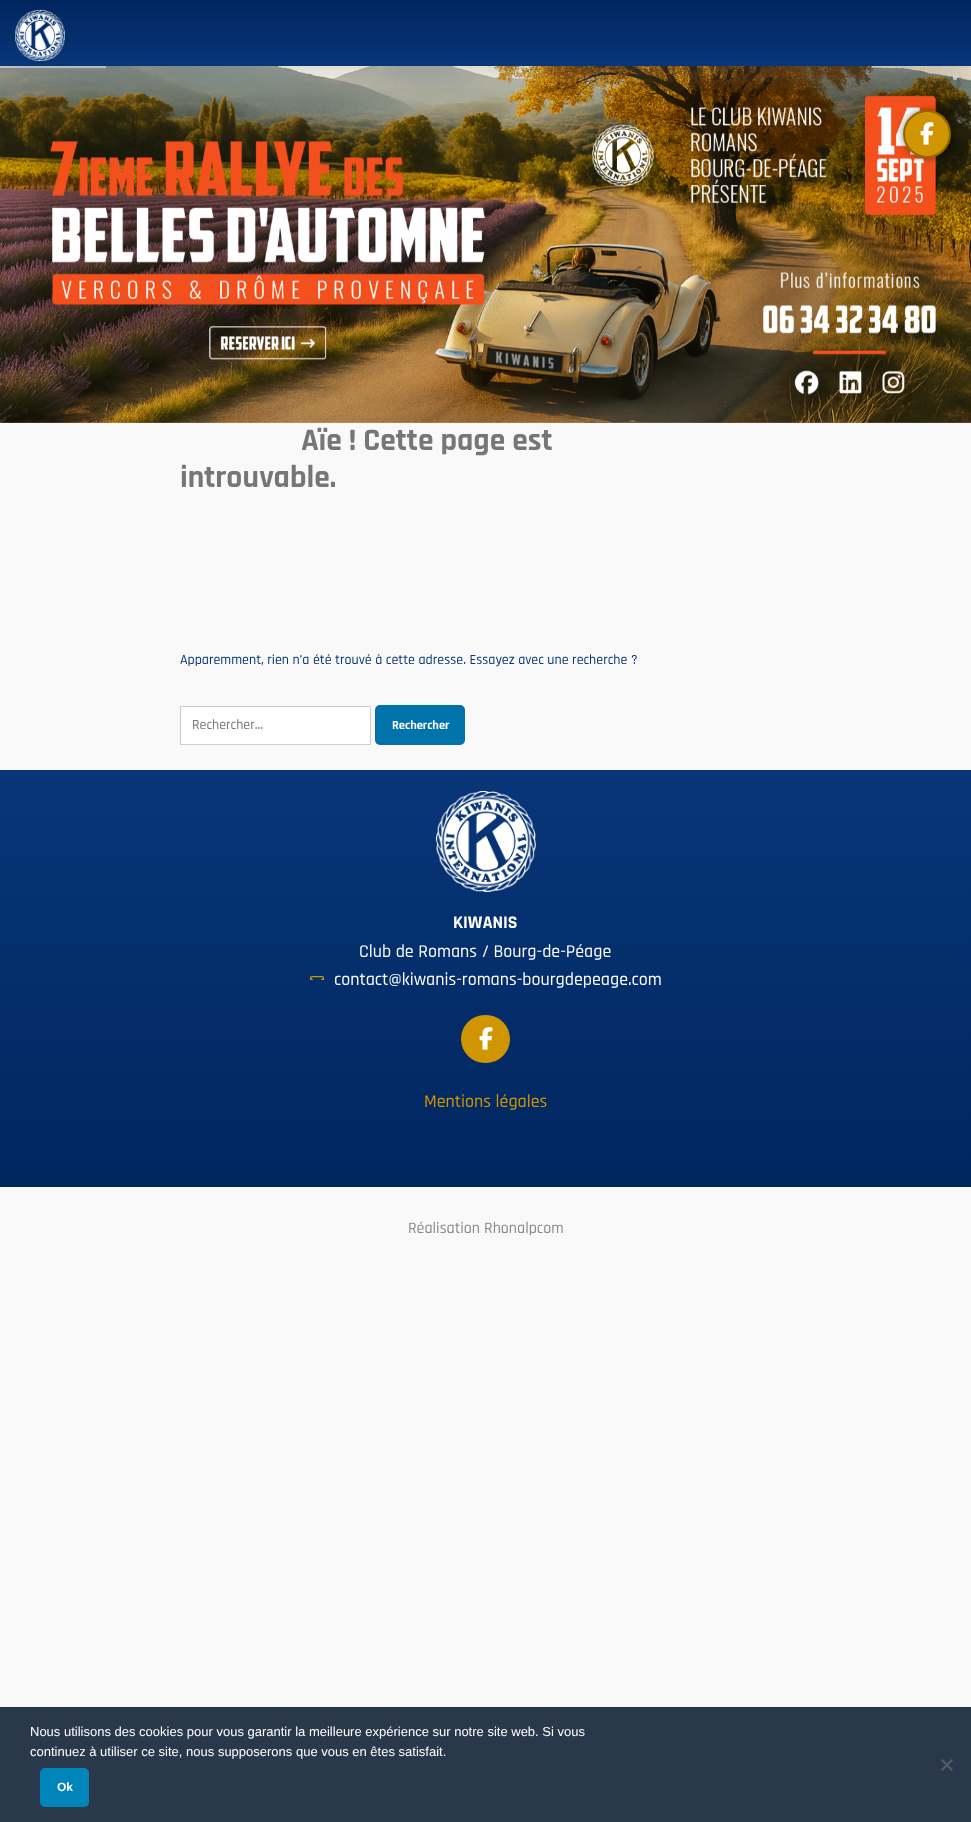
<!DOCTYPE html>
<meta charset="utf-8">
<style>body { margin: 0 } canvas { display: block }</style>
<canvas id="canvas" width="971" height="1822"></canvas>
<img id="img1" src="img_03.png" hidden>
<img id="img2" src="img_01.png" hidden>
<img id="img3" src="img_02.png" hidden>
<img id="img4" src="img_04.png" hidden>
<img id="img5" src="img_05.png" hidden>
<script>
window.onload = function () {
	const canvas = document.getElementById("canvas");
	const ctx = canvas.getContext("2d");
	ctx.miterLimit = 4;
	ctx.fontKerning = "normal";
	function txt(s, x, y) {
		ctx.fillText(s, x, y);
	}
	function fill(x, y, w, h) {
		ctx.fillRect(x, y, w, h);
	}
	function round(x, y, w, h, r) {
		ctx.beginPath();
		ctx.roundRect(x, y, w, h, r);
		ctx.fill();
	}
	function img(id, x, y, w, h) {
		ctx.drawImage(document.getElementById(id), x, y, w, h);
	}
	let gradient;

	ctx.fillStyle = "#F9F9F9";
	fill(0, 0, 971, 1822);
	img("img1", 0, 66, 971, 357);
	ctx.fillStyle = "rgba(255, 255, 255, 0.55)";
	fill(0, 66, 106, 4);
	ctx.fillStyle = "rgba(85, 85, 85, 0.55)";
	fill(0, 68, 106, 2);
	ctx.beginPath();
	ctx.arc(953, 84, 6, 0, Math.PI * 2);
	ctx.strokeStyle = "rgba(0, 0, 0, 0.13)";
	ctx.lineWidth = 4;
	ctx.stroke();
	ctx.save();
	ctx.beginPath();
	ctx.rect(953, 76, 8, 16);
	ctx.clip();
	ctx.beginPath();
	ctx.moveTo(952, 72.5);
	ctx.lineTo(958, 77.5);
	ctx.lineTo(948, 90);
	ctx.lineTo(941.5, 84.5);
	ctx.closePath();
	ctx.clip();
	ctx.beginPath();
	ctx.moveTo(957, 79);
	ctx.bezierCurveTo(963, 84, 955.5, 93, 949, 88);
	ctx.bezierCurveTo(943, 83, 950.5, 74, 957, 79);
	ctx.closePath();
	ctx.strokeStyle = "rgba(255, 255, 255, 0.65)";
	ctx.stroke();
	ctx.restore();
	ctx.fillStyle = "rgba(103, 122, 141, 0.19)";
	ctx.filter = "blur(10.5px)";
	ctx.beginPath();
	ctx.rect(0, 14, 971, 66);
	ctx.fill();
	ctx.filter = "none";
	gradient = ctx.createLinearGradient(486, 0, 486, 66);
	gradient.addColorStop(0, "#00265E");
	gradient.addColorStop(1, "#083679");
	ctx.fillStyle = gradient;
	fill(0, 0, 971, 66);
	img("img2", 15, 10, 50, 51);
	ctx.fillStyle = "#D09602";
	ctx.beginPath();
	ctx.arc(927, 134, 24, 0, Math.PI * 2);
	ctx.fill();
	img("img3", 920, 122, 14, 23);
	ctx.save();
	ctx.beginPath();
	ctx.moveTo(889, 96);
	ctx.lineTo(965, 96);
	ctx.lineTo(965, 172);
	ctx.lineTo(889, 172);
	ctx.closePath();
	ctx.moveTo(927, 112);
	ctx.bezierCurveTo(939, 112, 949, 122, 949, 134);
	ctx.bezierCurveTo(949, 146, 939, 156, 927, 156);
	ctx.bezierCurveTo(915, 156, 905, 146, 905, 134);
	ctx.bezierCurveTo(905, 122, 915, 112, 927, 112);
	ctx.closePath();
	ctx.clip("evenodd");
	ctx.fillStyle = "rgba(0, 0, 0, 0.8)";
	ctx.filter = "blur(5px)";
	ctx.beginPath();
	ctx.roundRect(905, 112, 44, 44, 22);
	ctx.fill();
	ctx.filter = "none";
	ctx.restore();
	ctx.fillStyle = "#FFFFFF";
	ctx.beginPath();
	ctx.rect(180.5, 706.5, 190, 38);
	ctx.fill();
	ctx.strokeStyle = "#CCCCCC";
	ctx.lineWidth = 1;
	ctx.stroke();
	ctx.fillStyle = "#0073AA";
	round(375, 705, 90, 40, 5);
	gradient = ctx.createLinearGradient(486, 770, 486, 1187);
	gradient.addColorStop(0, "#083679");
	gradient.addColorStop(1, "#00265E");
	ctx.fillStyle = gradient;
	fill(0, 770, 971, 417);
	img("img4", 436, 791, 100, 101);
	img("img5", 310, 976, 14, 4);
	ctx.fillStyle = "#D09602";
	round(461, 1015, 49, 48, 24);
	img("img3", 479, 1027, 14, 23);
	ctx.fillStyle = "#2A384C";
	fill(0, 1707, 971, 115);
	ctx.fillStyle = "#555C66";
	ctx.beginPath();
	ctx.moveTo(951.5, 1759);
	ctx.lineTo(953, 1760.5);
	ctx.lineTo(942.5, 1771);
	ctx.lineTo(941, 1769.5);
	ctx.closePath();
	ctx.fill();
	ctx.beginPath();
	ctx.moveTo(941, 1760.5);
	ctx.lineTo(942.5, 1759);
	ctx.lineTo(953, 1769.5);
	ctx.lineTo(951.5, 1771);
	ctx.closePath();
	ctx.fill();
	ctx.fillStyle = "#0085BA";
	round(40, 1768, 49, 39, 5);
	ctx.font = "bold 31.5px Rajdhani";
	ctx.fillStyle = "#767676";
	txt("Aïe ! Cette page est", 301, 450);
	txt("introuvable.", 180, 487);
	ctx.font = "500 14px Rajdhani";
	ctx.fillStyle = "#083679";
	txt("Apparemment, rien n’a été trouvé à cette adresse. Essayez avec une recherche ?", 180, 664);
	ctx.fillStyle = "#767676";
	txt("Rechercher…", 192, 729);
	ctx.font = "bold 12.5px Rajdhani";
	ctx.fillStyle = "#FFFFFF";
	txt("Rechercher", 392, 729);
	ctx.font = "bold 18px Rajdhani";
	txt("KIWANIS", 453, 928);
	ctx.font = "500 18px Rajdhani";
	txt("Club de Romans / Bourg-de-Péage", 359, 957);
	txt("contact@kiwanis-romans-bourgdepeage.com", 334, 985);
	ctx.fillStyle = "#D09602";
	txt("Mentions légales", 424, 1107);
	ctx.font = "500 16px Rajdhani";
	ctx.fillStyle = "#8A8A8A";
	txt("Réalisation Rhonalpcom", 408, 1233);
	ctx.font = "13px Liberation Sans";
	ctx.fillStyle = "#FFFFFF";
	txt("Nous utilisons des cookies pour vous garantir la meilleure expérience sur notre site web. Si vous", 30, 1736);
	txt("continuez à utiliser ce site, nous supposerons que vous en êtes satisfait.", 30, 1756);
	ctx.font = "bold 12px Liberation Sans";
	txt("Ok", 57, 1791);
};
</script>
